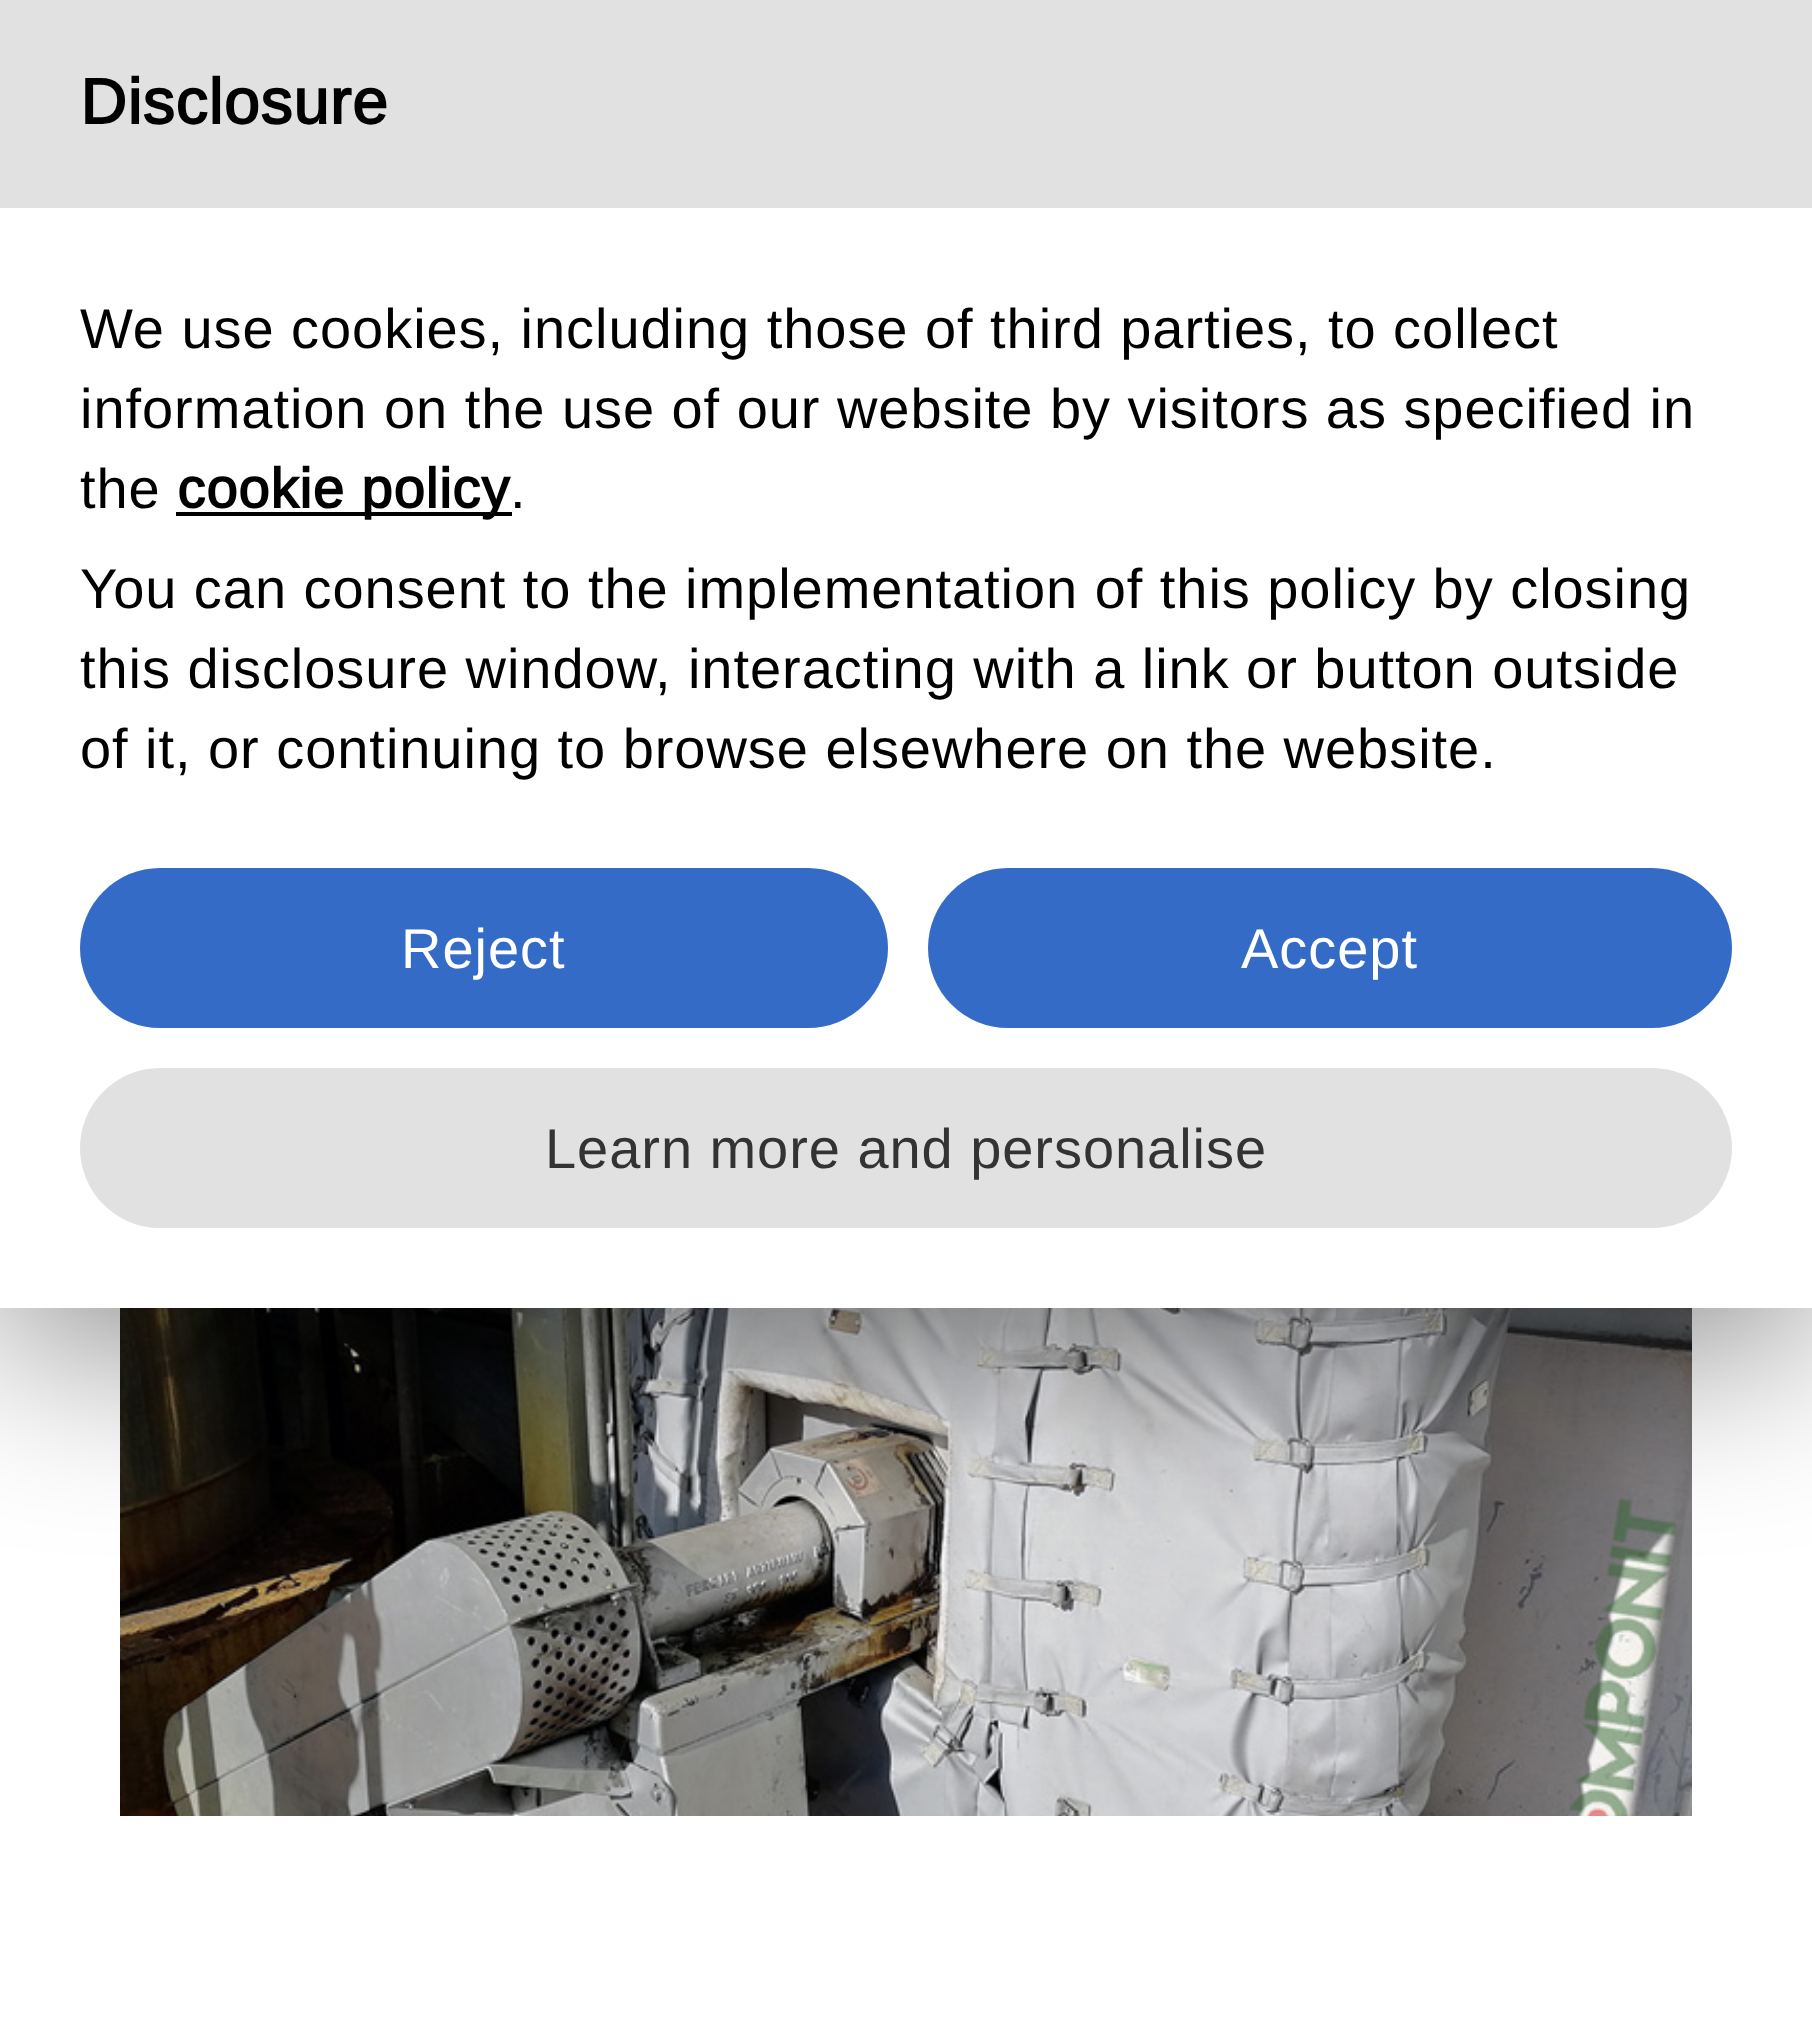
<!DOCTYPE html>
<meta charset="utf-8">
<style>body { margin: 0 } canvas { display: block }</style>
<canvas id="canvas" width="1812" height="2030"></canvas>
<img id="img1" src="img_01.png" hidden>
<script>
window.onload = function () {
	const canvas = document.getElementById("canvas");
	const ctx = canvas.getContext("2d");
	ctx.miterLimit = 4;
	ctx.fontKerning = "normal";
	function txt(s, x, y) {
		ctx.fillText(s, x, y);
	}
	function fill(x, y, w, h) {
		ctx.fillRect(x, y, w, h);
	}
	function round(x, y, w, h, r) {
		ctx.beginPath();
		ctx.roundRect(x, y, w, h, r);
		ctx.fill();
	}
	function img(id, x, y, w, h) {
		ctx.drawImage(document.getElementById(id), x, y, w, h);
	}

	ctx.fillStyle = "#FFFFFF";
	fill(0, 0, 1812, 2030);
	img("img1", 120, 1308, 1572, 508);
	ctx.fillStyle = "rgba(0, 0, 0, 0.5)";
	ctx.filter = "blur(96px)";
	ctx.beginPath();
	ctx.rect(0, 32, 1812, 1308);
	ctx.fill();
	ctx.filter = "none";
	ctx.fillStyle = "#FFFFFF";
	fill(0, 208, 1812, 1100);
	ctx.fillStyle = "#E1E1E1";
	fill(0, 0, 1812, 208);
	ctx.fillStyle = "#000000";
	fill(176, 512, 336, 4);
	ctx.fillStyle = "#346BC7";
	round(80, 868, 808, 160, 80);
	round(928, 868, 804, 160, 80);
	ctx.fillStyle = "#E1E1E1";
	round(80, 1068, 1652, 160, 80);
	ctx.letterSpacing = "0.95px";
	ctx.font = "bold 64px Arimo";
	ctx.fillStyle = "#000000";
	txt("Disclosure", 80, 124);
	ctx.font = "56px Arimo";
	txt("We use cookies, including those of third parties, to collect", 80, 348);
	txt("information on the use of our website by visitors as specified in", 80, 428);
	txt("the", 80, 508);
	ctx.font = "bold 56px Arimo";
	txt("cookie policy", 177, 508);
	ctx.font = "56px Arimo";
	txt(".", 510, 508);
	txt("You can consent to the implementation of this policy by closing", 80, 608);
	txt("this disclosure window, interacting with a link or button outside", 80, 688);
	txt("of it, or continuing to browse elsewhere on the website.", 80, 768);
	ctx.fillStyle = "#FFFFFF";
	txt("Reject", 401, 968);
	txt("Accept", 1241, 968);
	ctx.fillStyle = "#333333";
	txt("Learn more and personalise", 545, 1168);
};
</script>
